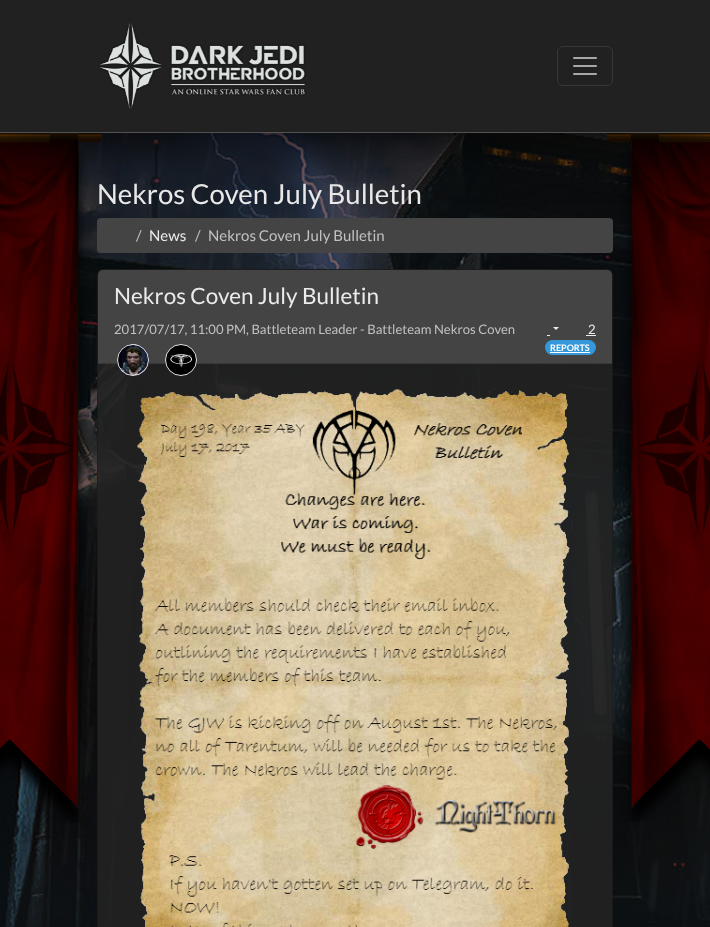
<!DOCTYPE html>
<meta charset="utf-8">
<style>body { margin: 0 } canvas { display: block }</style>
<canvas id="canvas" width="710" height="927"></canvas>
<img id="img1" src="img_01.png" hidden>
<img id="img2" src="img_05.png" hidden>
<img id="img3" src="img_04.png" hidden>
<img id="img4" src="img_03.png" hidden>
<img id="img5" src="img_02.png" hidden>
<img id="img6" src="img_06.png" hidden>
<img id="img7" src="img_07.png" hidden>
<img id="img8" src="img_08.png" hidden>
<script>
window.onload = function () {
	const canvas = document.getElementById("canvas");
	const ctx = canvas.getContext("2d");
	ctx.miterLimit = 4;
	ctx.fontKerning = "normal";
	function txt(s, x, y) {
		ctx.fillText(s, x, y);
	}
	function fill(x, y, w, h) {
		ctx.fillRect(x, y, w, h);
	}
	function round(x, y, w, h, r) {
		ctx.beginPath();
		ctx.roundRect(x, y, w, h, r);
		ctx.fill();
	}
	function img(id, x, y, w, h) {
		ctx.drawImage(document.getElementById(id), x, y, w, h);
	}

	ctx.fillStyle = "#FFFFFF";
	fill(0, 0, 710, 927);
	img("img1", 0, 133, 710, 794);
	ctx.fillStyle = "#444444";
	round(97, 218, 516, 35, 4);
	img("img2", 607, 133, 103, 689);
	ctx.font = "27.6px Lato";
	ctx.fillStyle = "#EBEBEB";
	txt("Nekros Coven July Bulletin", 97, 204);
	img("img3", 0, 133, 102, 690);
	ctx.fillStyle = "#000000";
	ctx.filter = "blur(30px)";
	ctx.beginPath();
	ctx.rect(0, 0, 710, 133);
	ctx.fill();
	ctx.filter = "none";
	ctx.fillStyle = "#212121";
	fill(0, 0, 710, 132);
	ctx.beginPath();
	ctx.roundRect(557.5, 46.5, 55, 39, 5.5);
	ctx.strokeStyle = "#373737";
	ctx.stroke();
	img("img4", 573, 57, 24, 18);
	img("img5", 99, 23, 207, 86);
	ctx.fillStyle = "#525252";
	fill(0, 132, 710, 1);
	ctx.font = "15px Lato";
	ctx.fillStyle = "#C1C1C1";
	txt("/", 136, 241);
	ctx.fillStyle = "#EBEBEB";
	txt("News", 149, 241);
	ctx.fillStyle = "#C1C1C1";
	txt("/", 195, 241);
	txt("Nekros Coven July Bulletin", 208, 241);
	ctx.fillStyle = "rgba(34, 34, 34, 0.9)";
	round(97, 269, 516, 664, 6);
	ctx.beginPath();
	ctx.roundRect(97.5, 269.5, 515, 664, 5.5);
	ctx.strokeStyle = "rgba(0, 0, 0, 0.18)";
	ctx.stroke();
	ctx.fillStyle = "#444444";
	ctx.beginPath();
	ctx.roundRect(98, 270, 514, 94, [5, 5, 0, 0]);
	ctx.fill();
	ctx.fillStyle = "#383838";
	fill(98, 363, 514, 1);
	ctx.font = "22.5px Lato";
	ctx.fillStyle = "#EBEBEB";
	txt("Nekros Coven July Bulletin", 114, 304);
	ctx.font = "13.1px Lato";
	ctx.fillStyle = "#C1C1C1";
	txt("2017/07/17, 11:00 PM, Battleteam Leader - Battleteam Nekros Coven", 114, 334);
	ctx.fillStyle = "#EBEBEB";
	ctx.beginPath();
	ctx.moveTo(553, 327);
	ctx.lineTo(559, 327);
	ctx.lineTo(556, 330);
	ctx.closePath();
	ctx.fill();
	fill(547, 335, 3, 1);
	txt("2", 588, 334);
	fill(586, 335, 10, 1);
	img("img6", 117, 344, 32, 32);
	ctx.beginPath();
	ctx.arc(133, 360, 15.5, 0, Math.PI * 2);
	ctx.strokeStyle = "#DEE2E6";
	ctx.stroke();
	ctx.fillStyle = "#000000";
	ctx.beginPath();
	ctx.arc(181, 360, 15.5, 0, Math.PI * 2);
	ctx.fill();
	ctx.stroke();
	img("img7", 170, 354, 22, 14);
	ctx.fillStyle = "#3498DB";
	round(545, 340, 51, 15, 7.5);
	ctx.font = "bold 9px Lato";
	ctx.fillStyle = "#FFFFFF";
	txt("REPORTS", 550, 351);
	fill(550, 352, 40, 1);
	img("img8", 137, 389, 433, 538);
};
</script>
